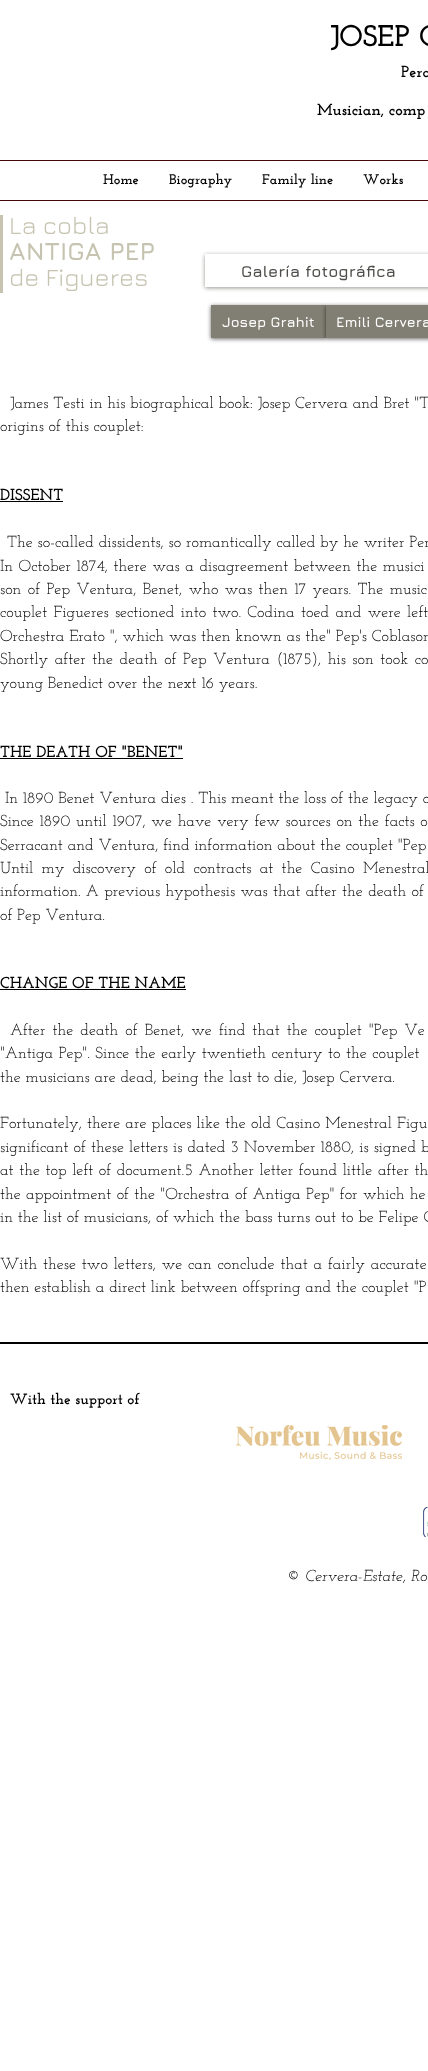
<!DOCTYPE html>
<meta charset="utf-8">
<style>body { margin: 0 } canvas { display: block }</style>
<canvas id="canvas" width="428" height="2071"></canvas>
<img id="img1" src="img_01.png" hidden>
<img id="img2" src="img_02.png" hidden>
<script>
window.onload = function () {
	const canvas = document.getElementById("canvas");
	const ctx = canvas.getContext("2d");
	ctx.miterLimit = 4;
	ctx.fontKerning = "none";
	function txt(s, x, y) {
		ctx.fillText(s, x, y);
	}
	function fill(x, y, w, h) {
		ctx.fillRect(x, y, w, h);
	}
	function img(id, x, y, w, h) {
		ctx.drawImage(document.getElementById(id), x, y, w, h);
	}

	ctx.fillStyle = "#FFFFFF";
	fill(0, 0, 428, 2071);
	ctx.fillStyle = "#440506";
	fill(0, 160, 428, 1);
	fill(0, 200, 428, 1);
	ctx.fillStyle = "#C6C4B0";
	fill(0, 215, 3, 78);
	ctx.save();
	ctx.beginPath();
	ctx.moveTo(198, 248);
	ctx.lineTo(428, 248);
	ctx.lineTo(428, 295);
	ctx.lineTo(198, 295);
	ctx.closePath();
	ctx.moveTo(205, 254);
	ctx.lineTo(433, 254);
	ctx.lineTo(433, 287);
	ctx.lineTo(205, 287);
	ctx.closePath();
	ctx.clip("evenodd");
	ctx.fillStyle = "rgba(79, 78, 74, 0.6)";
	ctx.filter = "blur(2px)";
	ctx.beginPath();
	ctx.rect(205, 255, 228, 33);
	ctx.fill();
	ctx.filter = "none";
	ctx.restore();
	ctx.fillStyle = "rgba(0, 0, 0, 0.6)";
	ctx.filter = "blur(2px)";
	ctx.beginPath();
	ctx.rect(211, 306, 115, 33);
	ctx.fill();
	ctx.filter = "none";
	ctx.fillStyle = "#817F73";
	fill(211, 305, 115, 33);
	ctx.fillStyle = "rgba(0, 0, 0, 0.6)";
	ctx.filter = "blur(2px)";
	ctx.beginPath();
	ctx.rect(326, 306, 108, 33);
	ctx.fill();
	ctx.filter = "none";
	ctx.fillStyle = "#817F73";
	fill(326, 305, 102, 33);
	ctx.fillStyle = "#000000";
	fill(0, 501, 63, 1);
	fill(0, 758, 183, 1);
	fill(0, 989, 186, 1);
	fill(0, 1342, 428, 2);
	img("img1", 236, 1425, 166, 35);
	img("img2", 423, 1507, 5, 30);
	ctx.font = "bold 30px Josefin Slab";
	txt("JOSEP C", 330, 46);
	ctx.font = "bold 16px Josefin Slab";
	txt("Pera", 401, 77);
	txt("Musician, comp", 317, 115);
	ctx.font = "bold 14px Josefin Slab";
	txt("Home", 103, 184);
	txt("Biography", 169, 184);
	txt("Family line", 262, 184);
	txt("Works", 363, 184);
	ctx.font = "25px Jura";
	ctx.fillStyle = "#C6C4B0";
	txt("La cobla", 9, 234);
	ctx.font = "bold 25px Jura";
	txt("ANTIGA PEP", 9, 260);
	ctx.font = "25px Jura";
	txt("de Figueres", 9, 286);
	ctx.font = "bold 16px Jura";
	ctx.fillStyle = "#4F4E4A";
	txt("Galería fotográfica", 241, 277);
	ctx.font = "bold 14px Jura";
	ctx.fillStyle = "#FFFFFF";
	txt("Josep Grahit", 222, 327);
	txt("Emili Cervera", 336, 327);
	ctx.font = "16px Josefin Slab";
	ctx.fillStyle = "#000000";
	txt("James Testi in his biographical book: Josep Cervera and Bret \"T", 10, 408);
	txt("origins of this couplet:", 0, 431);
	ctx.font = "bold 16px Josefin Slab";
	txt("DISSENT", 0, 500);
	ctx.font = "16px Josefin Slab";
	txt("The so-called dissidents, so romantically called by he writer Per", 7, 547);
	ctx.wordSpacing = "0.75px";
	txt("In October 1874, there was a disagreement between the musici", 0, 571);
	ctx.wordSpacing = "1.6px";
	txt("son of Pep Ventura, Benet, who was then 17 years. The music", 0, 594);
	ctx.wordSpacing = "1.5px";
	txt("couplet Figueres sectioned into two. Codina toed and were left", 0, 617);
	ctx.wordSpacing = "0px";
	txt("Orchestra Erato \", which was then known as the\" Pep's Coblason", 0, 641);
	ctx.wordSpacing = "1.75px";
	txt("Shortly after the death of Pep Ventura (1875), his son took co", 0, 664);
	ctx.wordSpacing = "0px";
	txt("young Benedict over the next 16 years.", 0, 688);
	ctx.font = "bold 16px Josefin Slab";
	txt("THE DEATH OF \"BENET\"", 0, 757);
	ctx.font = "16px Josefin Slab";
	txt("In 1890 Benet Ventura dies . This meant the loss of the legacy o", 5, 803);
	ctx.wordSpacing = "0.9px";
	txt("Since 1890 until 1907, we have very few sources on the facts o", 0, 826);
	ctx.wordSpacing = "0px";
	txt("Serracant and Ventura, find information about the couplet \"Pep", 0, 850);
	ctx.wordSpacing = "3.5px";
	txt("Until my discovery of old contracts at the Casino Menestral", 0, 873);
	ctx.wordSpacing = "0.5px";
	txt("information. A previous hypothesis was that after the death of", 0, 896);
	ctx.wordSpacing = "0px";
	txt("of Pep Ventura.", 0, 920);
	ctx.font = "bold 16px Josefin Slab";
	txt("CHANGE OF THE NAME", 0, 988);
	ctx.wordSpacing = "2.25px";
	ctx.font = "16px Josefin Slab";
	txt("After the death of Benet, we find that the couplet \"Pep Ve", 10, 1035);
	ctx.wordSpacing = "0.75px";
	txt("\"Antiga Pep\". Since the early twentieth century to the couplet", 0, 1058);
	ctx.wordSpacing = "0px";
	txt("the musicians are dead, being the last to die, Josep Cervera.", 0, 1082);
	ctx.wordSpacing = "0.25px";
	txt("Fortunately, there are places like the old Casino Menestral Figu", 0, 1128);
	txt("significant of these letters is dated 3 November 1880, is signed b", 0, 1152);
	ctx.wordSpacing = "0.75px";
	txt("at the top left of document.5 Another letter found little after th", 0, 1175);
	ctx.wordSpacing = "0.5px";
	txt("the appointment of the \"Orchestra of Antiga Pep\" for which he", 0, 1199);
	ctx.wordSpacing = "0px";
	txt("in the list of musicians, of which the bass turns out to be Felipe C", 0, 1222);
	ctx.wordSpacing = "1px";
	txt("With these two letters, we can conclude that a fairly accurate", 0, 1269);
	ctx.wordSpacing = "0px";
	txt("then establish a direct link between offspring and the couplet \"P", 0, 1292);
	ctx.font = "bold 15px Josefin Slab";
	txt("With the support of", 10, 1404);
	ctx.font = "bold 16px Josefin Slab";
	txt("©", 287, 1581);
	ctx.font = "italic 16px Josefin Slab";
	txt("Cervera-Estate, Ro", 305, 1581);
};
</script>
